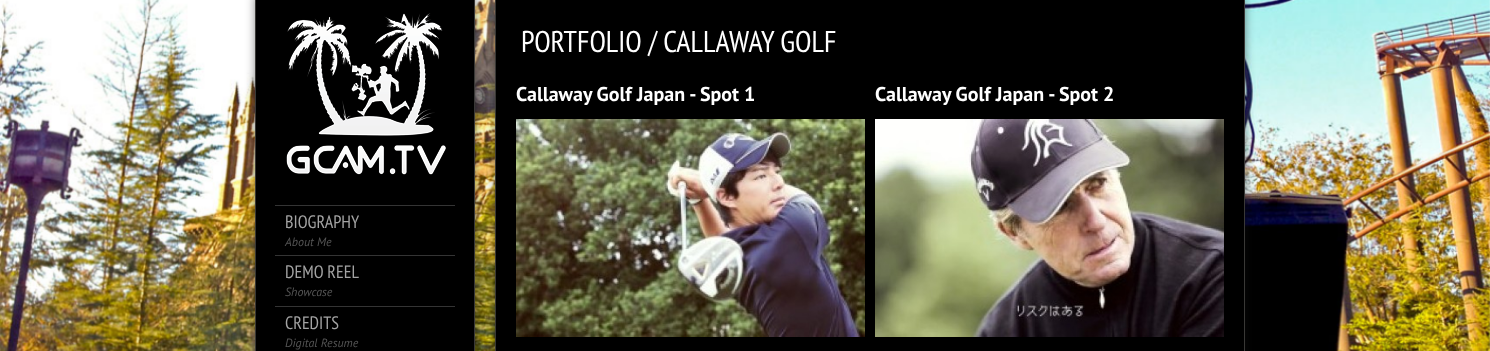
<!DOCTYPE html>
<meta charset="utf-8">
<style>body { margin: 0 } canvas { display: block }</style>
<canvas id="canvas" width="1490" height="351"></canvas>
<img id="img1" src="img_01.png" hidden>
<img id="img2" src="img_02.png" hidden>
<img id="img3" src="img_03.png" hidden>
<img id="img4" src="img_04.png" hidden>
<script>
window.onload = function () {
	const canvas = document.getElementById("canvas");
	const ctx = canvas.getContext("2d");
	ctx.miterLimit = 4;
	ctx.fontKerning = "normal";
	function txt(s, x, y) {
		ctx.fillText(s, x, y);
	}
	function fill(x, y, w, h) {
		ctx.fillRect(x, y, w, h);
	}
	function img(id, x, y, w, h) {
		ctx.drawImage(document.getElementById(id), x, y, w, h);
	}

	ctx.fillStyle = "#FFFFFF";
	fill(0, 0, 1490, 351);
	img("img1", 0, 0, 1490, 351);
	ctx.fillStyle = "rgba(17, 17, 17, 0.5)";
	ctx.filter = "blur(5px)";
	ctx.beginPath();
	ctx.rect(495, 0, 750, 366);
	ctx.fill();
	ctx.filter = "none";
	ctx.fillStyle = "#000000";
	fill(496, 0, 748, 351);
	ctx.fillStyle = "#393836";
	fill(1244, 0, 1, 351);
	fill(495, 0, 1, 351);
	img("img2", 516, 119, 349, 218);
	img("img3", 875, 119, 349, 218);
	ctx.fillStyle = "rgba(17, 17, 17, 0.5)";
	ctx.filter = "blur(5px)";
	ctx.beginPath();
	ctx.rect(255, -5, 220, 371);
	ctx.fill();
	ctx.filter = "none";
	ctx.fillStyle = "#000000";
	fill(256, 0, 218, 351);
	ctx.fillStyle = "#393836";
	fill(474, 0, 1, 351);
	fill(255, 0, 1, 351);
	img("img4", 286, 13, 160, 162);
	ctx.fillStyle = "#343434";
	fill(275, 205, 180, 1);
	fill(275, 255, 180, 1);
	fill(275, 306, 180, 1);
	ctx.font = "30px PT Sans Narrow";
	ctx.fillStyle = "#FFFFFF";
	txt("PORTFOLIO / CALLAWAY GOLF", 521, 52);
	ctx.font = "bold 20px PT Sans";
	txt("Callaway Golf Japan - Spot 1", 516, 101);
	txt("Callaway Golf Japan - Spot 2", 875, 101);
	ctx.font = "18px PT Sans Narrow";
	ctx.fillStyle = "#A3A3A3";
	txt("BIOGRAPHY", 285, 228);
	ctx.font = "italic 12px PT Sans";
	ctx.fillStyle = "#555555";
	txt("About Me", 285, 246);
	ctx.font = "18px PT Sans Narrow";
	ctx.fillStyle = "#A3A3A3";
	txt("DEMO REEL", 285, 278);
	ctx.font = "italic 12px PT Sans";
	ctx.fillStyle = "#555555";
	txt("Showcase", 285, 296);
	ctx.font = "18px PT Sans Narrow";
	ctx.fillStyle = "#A3A3A3";
	txt("CREDITS", 285, 329);
	ctx.font = "italic 12px PT Sans";
	ctx.fillStyle = "#555555";
	txt("Digital Resume", 285, 347);
};
</script>
